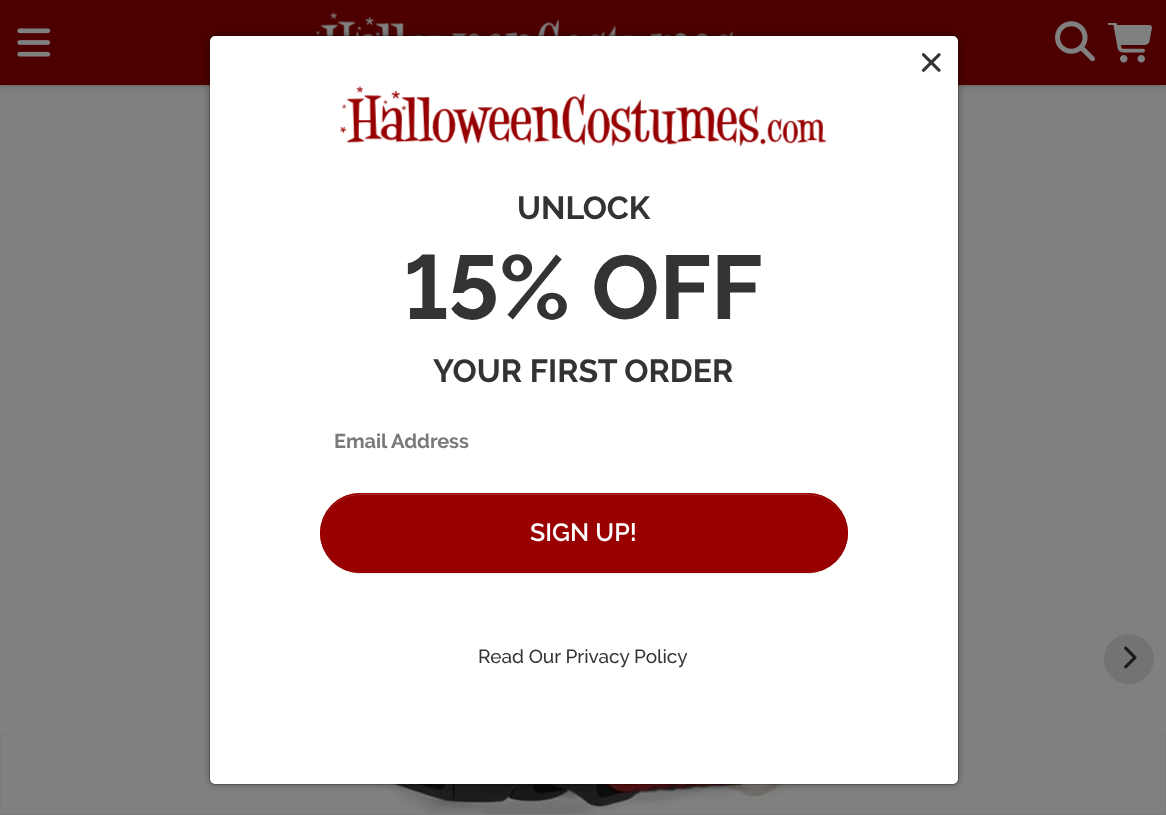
<!DOCTYPE html>
<meta charset="utf-8">
<style>body { margin: 0 } canvas { display: block }</style>
<canvas id="canvas" width="1166" height="815"></canvas>
<img id="img1" src="img_01.png" hidden>
<img id="img2" src="img_02.png" hidden>
<img id="img3" src="img_03.png" hidden>
<img id="img4" src="img_04.png" hidden>
<img id="img5" src="img_08.png" hidden>
<img id="img6" src="img_05.png" hidden>
<img id="img7" src="img_06.png" hidden>
<img id="img8" src="img_07.png" hidden>
<script>
window.onload = function () {
	const canvas = document.getElementById("canvas");
	const ctx = canvas.getContext("2d");
	ctx.miterLimit = 4;
	ctx.fontKerning = "normal";
	function txt(s, x, y) {
		ctx.fillText(s, x, y);
	}
	function fill(x, y, w, h) {
		ctx.fillRect(x, y, w, h);
	}
	function round(x, y, w, h, r) {
		ctx.beginPath();
		ctx.roundRect(x, y, w, h, r);
		ctx.fill();
	}
	function img(id, x, y, w, h) {
		ctx.drawImage(document.getElementById(id), x, y, w, h);
	}

	ctx.fillStyle = "#808080";
	fill(0, 0, 1166, 815);
	ctx.fillStyle = "rgba(0, 0, 0, 0.3)";
	ctx.filter = "blur(3px)";
	ctx.beginPath();
	ctx.rect(0, 0, 1166, 85);
	ctx.fill();
	ctx.filter = "none";
	ctx.fillStyle = "#4D0000";
	fill(0, 0, 1166, 85);
	img("img1", 17, 28, 34, 29);
	img("img2", 315, 12, 418, 24);
	img("img3", 1055, 21, 40, 40);
	img("img4", 1108, 23, 44, 40);
	img("img5", 271, 784, 620, 30);
	ctx.strokeStyle = "#7B7B7B";
	ctx.strokeRect(0.5, 734.5, 1165, 80);
	ctx.fillStyle = "rgba(0, 0, 0, 0.3)";
	ctx.filter = "blur(3px)";
	ctx.beginPath();
	ctx.roundRect(209, 35, 750, 750, 6);
	ctx.fill();
	ctx.filter = "none";
	ctx.fillStyle = "#FFFFFF";
	round(210, 36, 748, 748, 5);
	ctx.beginPath();
	ctx.roundRect(209.5, 35.5, 749, 749, 5.5);
	ctx.strokeStyle = "rgba(0, 0, 0, 0.18)";
	ctx.stroke();
	img("img6", 921, 53, 20, 19);
	img("img7", 339, 86, 488, 61);
	ctx.fillStyle = "rgba(0, 0, 0, 0.07)";
	ctx.filter = "blur(0.5px)";
	ctx.beginPath();
	ctx.roundRect(320, 494, 528, 80, 40);
	ctx.fill();
	ctx.filter = "none";
	ctx.fillStyle = "#990000";
	round(320, 493, 528, 80, 40);
	ctx.fillStyle = "#A82626";
	ctx.beginPath();
	ctx.moveTo(360, 495);
	ctx.lineTo(808, 495);
	ctx.bezierCurveTo(829, 495, 846, 512, 846, 533);
	ctx.bezierCurveTo(846, 512, 829, 494, 808, 494);
	ctx.lineTo(360, 494);
	ctx.bezierCurveTo(338, 494, 321, 512, 321, 533);
	ctx.bezierCurveTo(321, 512, 339, 495, 360, 495);
	ctx.closePath();
	ctx.fill();
	ctx.beginPath();
	ctx.roundRect(320.5, 493.5, 527, 79, 39.5);
	ctx.strokeStyle = "#990000";
	ctx.stroke();
	ctx.fillStyle = "#737373";
	ctx.beginPath();
	ctx.arc(1129, 659, 24.5, 0, Math.PI * 2);
	ctx.fill();
	ctx.strokeStyle = "#737373";
	ctx.stroke();
	img("img8", 1124, 646, 13, 23);
	ctx.font = "bold 32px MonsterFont";
	ctx.fillStyle = "#333333";
	txt("UNLOCK", 517, 219);
	ctx.font = "bold 90px MonsterFont";
	txt("15% OFF", 404, 319);
	ctx.font = "bold 32px MonsterFont";
	txt("YOUR FIRST ORDER", 433, 382);
	ctx.font = "bold 20px MonsterFont";
	ctx.fillStyle = "#7A7A7A";
	txt("Email Address", 334, 448);
	ctx.font = "600 25px MonsterFont";
	ctx.fillStyle = "#FFFFFF";
	txt("SIGN UP!", 530, 541);
	ctx.font = "500 19px MonsterFont";
	ctx.fillStyle = "#333333";
	txt("Read Our Privacy Policy", 478, 663);
};
</script>
